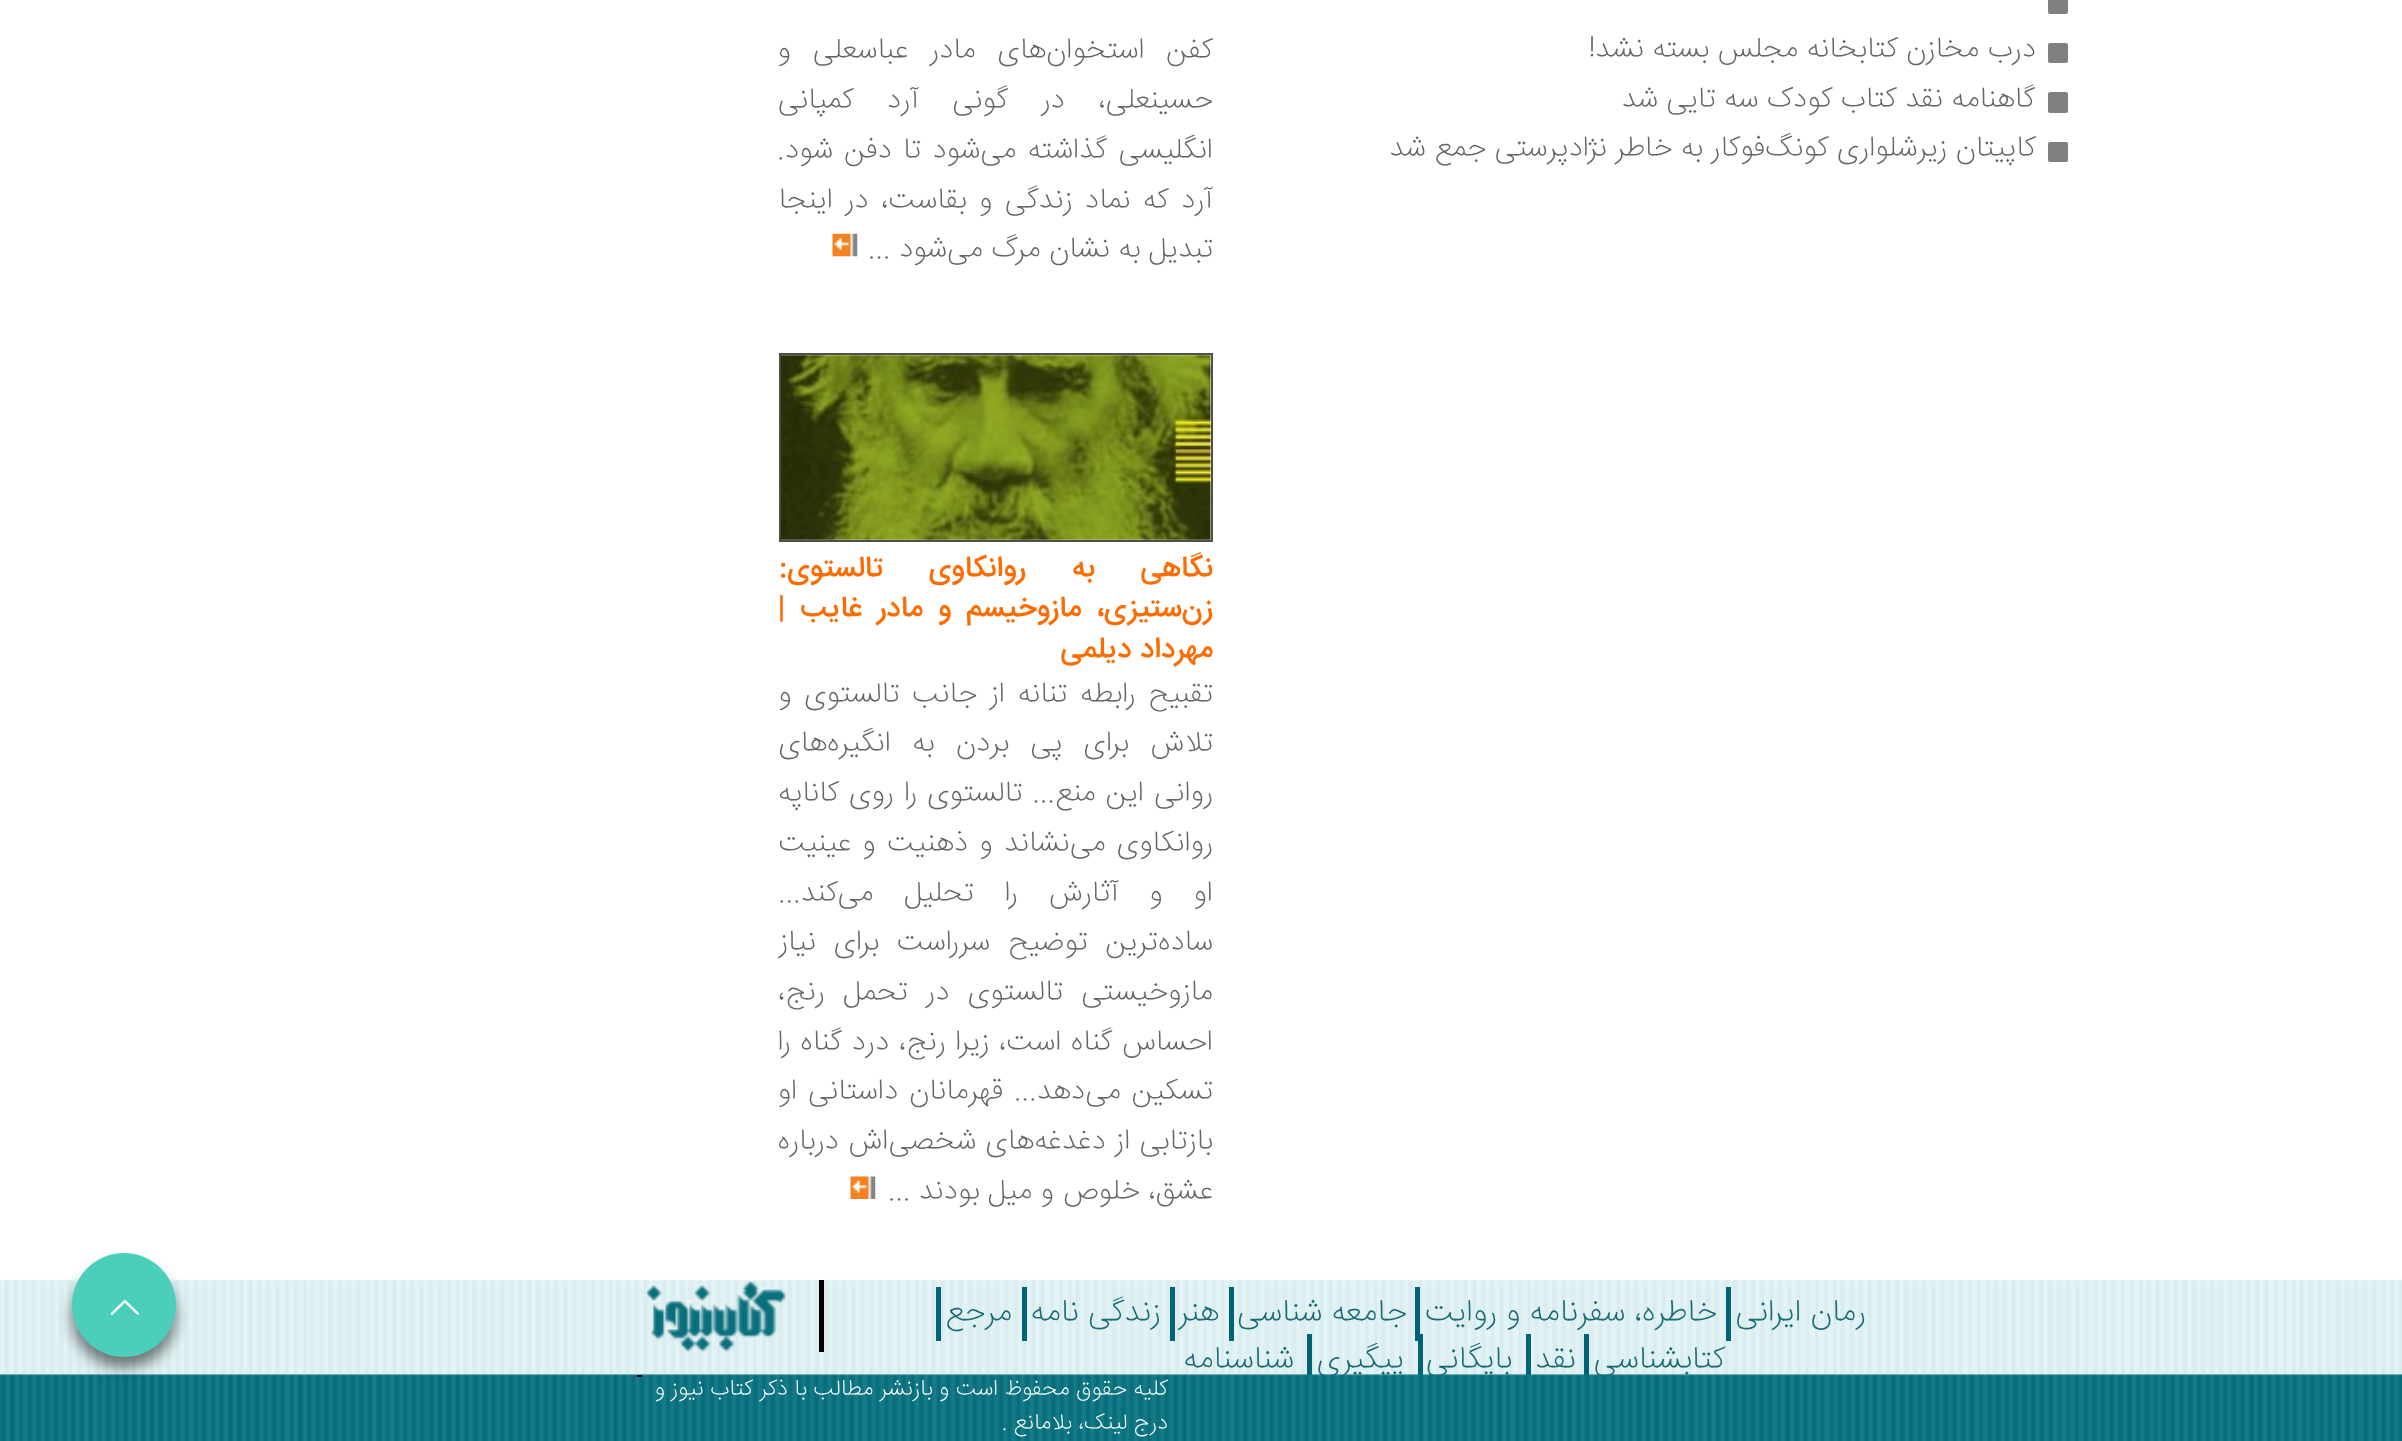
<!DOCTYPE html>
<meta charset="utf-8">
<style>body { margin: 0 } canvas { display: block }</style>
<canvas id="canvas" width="2402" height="1441"></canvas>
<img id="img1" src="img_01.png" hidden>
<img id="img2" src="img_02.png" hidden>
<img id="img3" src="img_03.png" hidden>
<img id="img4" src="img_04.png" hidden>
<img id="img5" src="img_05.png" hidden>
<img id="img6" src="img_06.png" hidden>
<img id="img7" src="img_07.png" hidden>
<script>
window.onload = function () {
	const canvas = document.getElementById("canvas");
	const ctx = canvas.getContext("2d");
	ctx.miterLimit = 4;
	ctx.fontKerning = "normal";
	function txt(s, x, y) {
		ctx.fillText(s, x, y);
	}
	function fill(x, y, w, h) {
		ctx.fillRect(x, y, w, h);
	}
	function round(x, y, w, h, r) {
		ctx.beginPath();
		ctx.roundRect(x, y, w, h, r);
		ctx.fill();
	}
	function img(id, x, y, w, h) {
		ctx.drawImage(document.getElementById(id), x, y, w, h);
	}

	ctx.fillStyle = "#FFFFFF";
	fill(0, 0, 2402, 1441);
	ctx.fillStyle = "#808080";
	round(2048, -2, 20, 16, 2);
	round(2048, 43, 20, 20, 2);
	round(2048, 92, 20, 21, 2);
	round(2048, 142, 20, 20, 2);
	img("img1", 832, 233, 26, 24);
	ctx.strokeStyle = "#4F4F4E";
	ctx.lineWidth = 2;
	ctx.strokeRect(780, 354, 432, 187);
	img("img2", 780, 355, 431, 185);
	img("img3", 850, 1176, 26, 23);
	img("img4", 0, 1279, 2402, 97);
	ctx.fillStyle = "#006478";
	fill(1726, 1287, 5, 54);
	fill(1415, 1287, 5, 54);
	fill(1229, 1287, 5, 54);
	fill(1170, 1287, 5, 54);
	fill(1022, 1287, 5, 54);
	fill(936, 1287, 5, 54);
	fill(1584, 1334, 5, 42);
	fill(1526, 1334, 5, 42);
	fill(1418, 1334, 5, 42);
	fill(1307, 1334, 5, 42);
	ctx.fillStyle = "#000000";
	fill(819, 1280, 5, 72);
	img("img5", 645, 1280, 141, 72);
	ctx.direction = "rtl";
	ctx.font = "200 29.25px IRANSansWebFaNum";
	ctx.fillStyle = "#666666";
	txt("درب مخازن کتابخانه مجلس بسته نشد!", 2036, 57);
	txt("گاهنامه نقد کتاب کودک سه تایی شد", 2035, 107);
	txt("کاپیتان زیرشلواری کونگ", 2036, 156);
	txt("‌فوکار به خاطر نژادپرستی جمع", 1765, 156);
	txt("‌ شد", 1434, 156);
	ctx.wordSpacing = "13.5px";
	txt("کفن استخوان‌های مادر عباسعلی و", 1213, 58);
	ctx.wordSpacing = "25px";
	txt("حسینعلی، در گونی آرد کمپانی", 1213, 108);
	ctx.wordSpacing = "3px";
	txt("انگلیسی گذاشته می‌شود تا دفن شود.", 1213, 158);
	ctx.wordSpacing = "4px";
	txt("آرد که نماد زندگی و بقاست، در اینجا", 1213, 208);
	ctx.wordSpacing = "0px";
	txt("تبدیل به نشان مرگ می‌شود", 1213, 257);
	ctx.direction = "ltr";
	txt("...", 868, 257);
	ctx.wordSpacing = "38px";
	ctx.direction = "rtl";
	ctx.font = "500 29.25px IRANSansWebFaNum";
	ctx.fillStyle = "#FD6C02";
	txt("نگاهی به روانکاوی تالستوی:", 1213, 576);
	ctx.wordSpacing = "6.75px";
	txt("زن‌ستیزی، مازوخیسم و مادر غایب |", 1213, 616);
	ctx.wordSpacing = "0px";
	txt("مهرداد دیلمی", 1213, 657);
	ctx.wordSpacing = "4.25px";
	ctx.font = "200 29.25px IRANSansWebFaNum";
	ctx.fillStyle = "#666666";
	txt("تقبیح رابطه تنانه از جانب تالستوی و", 1213, 702);
	ctx.wordSpacing = "13px";
	txt("تلاش برای پی بردن به انگیره‌های", 1213, 751);
	ctx.wordSpacing = "1.75px";
	txt("روانی این منع... تالستوی را روی کاناپه", 1213, 801);
	ctx.wordSpacing = "3px";
	txt("روانکاوی می‌نشاند و ذهنیت و عینیت", 1213, 851);
	ctx.wordSpacing = "22.5px";
	txt("او و آثارش را تحلیل می‌کند...", 1213, 901);
	ctx.wordSpacing = "9.5px";
	txt("ساده‌ترین توضیح سرراست برای نیاز", 1213, 950);
	ctx.wordSpacing = "10px";
	txt("مازوخیستی تالستوی در تحمل رنج،", 1213, 1000);
	ctx.wordSpacing = "1.25px";
	txt("احساس گناه است، زیرا رنج، درد گناه را", 1213, 1050);
	ctx.wordSpacing = "2.5px";
	txt("تسکین می‌دهد... قهرمانان داستانی او", 1213, 1099);
	ctx.wordSpacing = "1px";
	txt("بازتابی از دغدغه‌های شخصی‌اش درباره", 1213, 1149);
	ctx.wordSpacing = "0px";
	txt("عشق، خلوص و میل بودند", 1213, 1199);
	ctx.direction = "ltr";
	txt("...", 888, 1199);
	ctx.direction = "rtl";
	ctx.font = "200 31.5px IRANSansWebFaNum";
	ctx.fillStyle = "#186975";
	txt("رمان ایرانی", 1866, 1321);
	txt("خاطره، سفرنامه و روایت", 1717, 1321);
	txt("جامعه شناسی", 1407, 1321);
	txt("هنر", 1219, 1321);
	txt("زندگی نامه", 1161, 1321);
	txt("مرجع", 1012, 1321);
	txt("کتابشناسی", 1725, 1368);
	txt("نقد", 1576, 1368);
	txt("بایگانی", 1512, 1368);
	txt("پیگیری", 1404, 1368);
	txt("شناسنامه", 1294, 1368);
	img("img6", 0, 1374, 2402, 67);
	ctx.fillStyle = "#000000";
	fill(637, 1375, 5, 2);
	ctx.font = "200 22.5px IRANSansWebFaNum";
	ctx.fillStyle = "#FFFFFF";
	txt("کلیه حقوق محفوظ است و بازنشر مطالب با ذکر", 1168, 1395);
	txt("کتاب نیوز", 753, 1395);
	txt("و", 665, 1395);
	txt("درج لینک، بلامانع .", 1168, 1429);
	ctx.fillStyle = "rgba(0, 0, 0, 0.5)";
	ctx.filter = "blur(7px)";
	ctx.beginPath();
	ctx.roundRect(72, 1265, 104, 103, 51.5);
	ctx.fill();
	ctx.filter = "none";
	ctx.fillStyle = "#4BCFBB";
	ctx.beginPath();
	ctx.arc(124, 1305, 52, 0, Math.PI * 2);
	ctx.fill();
	img("img7", 110, 1299, 29, 16);
};
</script>
